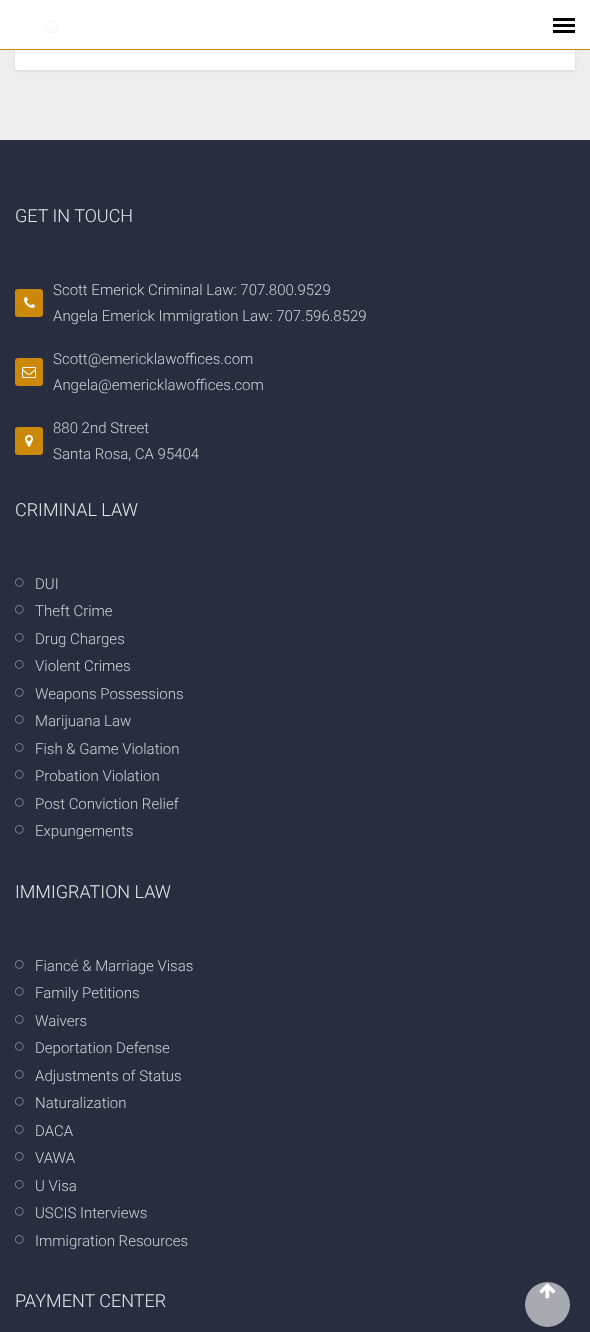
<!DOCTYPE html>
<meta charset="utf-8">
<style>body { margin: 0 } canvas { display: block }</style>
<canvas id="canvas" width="590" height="1332"></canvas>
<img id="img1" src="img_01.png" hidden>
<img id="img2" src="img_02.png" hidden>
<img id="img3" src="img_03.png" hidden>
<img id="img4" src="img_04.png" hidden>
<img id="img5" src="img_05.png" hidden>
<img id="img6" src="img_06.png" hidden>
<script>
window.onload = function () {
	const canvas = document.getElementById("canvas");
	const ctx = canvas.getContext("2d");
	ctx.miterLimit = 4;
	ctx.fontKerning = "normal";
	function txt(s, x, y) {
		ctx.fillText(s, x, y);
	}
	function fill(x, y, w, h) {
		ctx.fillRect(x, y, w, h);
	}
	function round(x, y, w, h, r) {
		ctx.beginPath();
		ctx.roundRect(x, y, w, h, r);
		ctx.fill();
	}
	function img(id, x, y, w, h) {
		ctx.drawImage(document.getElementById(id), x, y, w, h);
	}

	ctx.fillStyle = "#282E3F";
	fill(0, 0, 590, 1332);
	ctx.fillStyle = "#EEEEEE";
	fill(0, 0, 590, 140);
	ctx.fillStyle = "rgba(0, 0, 0, 0.1)";
	ctx.filter = "blur(1.5px)";
	ctx.beginPath();
	ctx.rect(15, -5, 560, 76);
	ctx.fill();
	ctx.filter = "none";
	ctx.fillStyle = "#FFFFFF";
	fill(15, 0, 560, 70);
	img("img1", 45, 20, 13, 14);
	ctx.fillStyle = "rgba(255, 255, 255, 0.95)";
	fill(0, 0, 590, 49);
	ctx.fillStyle = "#CC8809";
	fill(0, 49, 590, 1);
	ctx.fillStyle = "#000000";
	fill(553, 18, 22, 3);
	fill(553, 24, 22, 3);
	fill(553, 30, 22, 3);
	ctx.fillStyle = "#CC8809";
	round(15, 289, 28, 28, 3);
	img("img2", 24, 297, 11, 11);
	round(15, 358, 28, 28, 3);
	img("img3", 22, 367, 14, 11);
	round(15, 427, 28, 28, 3);
	img("img4", 25, 435, 8, 12);
	img("img5", 15, 578, 9, 9);
	img("img5", 15, 605, 9, 9);
	img("img5", 15, 633, 9, 9);
	img("img5", 15, 660, 9, 9);
	img("img5", 15, 688, 9, 9);
	img("img5", 15, 715, 9, 9);
	img("img5", 15, 743, 9, 9);
	img("img5", 15, 770, 9, 9);
	img("img5", 15, 798, 9, 9);
	img("img5", 15, 825, 9, 9);
	img("img5", 15, 960, 9, 9);
	img("img5", 15, 987, 9, 9);
	img("img5", 15, 1015, 9, 9);
	img("img5", 15, 1042, 9, 9);
	img("img5", 15, 1070, 9, 9);
	img("img5", 15, 1097, 9, 9);
	img("img5", 15, 1125, 9, 9);
	img("img5", 15, 1152, 9, 9);
	img("img5", 15, 1180, 9, 9);
	img("img5", 15, 1207, 9, 9);
	img("img5", 15, 1235, 9, 9);
	ctx.fillStyle = "#A7AAB1";
	ctx.beginPath();
	ctx.arc(547.5, 1304.5, 22.5, 0, Math.PI * 2);
	ctx.fill();
	img("img6", 539, 1283, 17, 16);
	ctx.font = "300 18px Roboto";
	ctx.fillStyle = "#E8E8E8";
	txt("GET IN TOUCH", 15, 222);
	ctx.font = "300 15px Roboto";
	ctx.fillStyle = "#D1D2D4";
	txt("Scott Emerick Criminal Law: 707.800.9529", 53, 295);
	txt("Angela Emerick Immigration Law: 707.596.8529", 53, 321);
	txt("Scott@emericklawoffices.com", 53, 364);
	txt("Angela@emericklawoffices.com", 53, 390);
	txt("880 2nd Street", 53, 433);
	txt("Santa Rosa, CA 95404", 53, 459);
	ctx.font = "300 18px Roboto";
	ctx.fillStyle = "#E8E8E8";
	txt("CRIMINAL LAW", 15, 516);
	ctx.font = "300 15px Roboto";
	ctx.fillStyle = "#D1D2D4";
	txt("DUI", 35, 589);
	txt("Theft Crime", 35, 616);
	txt("Drug Charges", 35, 644);
	txt("Violent Crimes", 35, 671);
	txt("Weapons Possessions", 35, 699);
	txt("Marijuana Law", 35, 726);
	txt("Fish & Game Violation", 35, 754);
	txt("Probation Violation", 35, 781);
	txt("Post Conviction Relief", 35, 809);
	txt("Expungements", 35, 836);
	ctx.font = "300 18px Roboto";
	ctx.fillStyle = "#E8E8E8";
	txt("IMMIGRATION LAW", 15, 898);
	ctx.font = "300 15px Roboto";
	ctx.fillStyle = "#D1D2D4";
	txt("Fiancé & Marriage Visas", 35, 971);
	txt("Family Petitions", 35, 998);
	txt("Waivers", 35, 1026);
	txt("Deportation Defense", 35, 1053);
	txt("Adjustments of Status", 35, 1081);
	txt("Naturalization", 35, 1108);
	txt("DACA", 35, 1136);
	txt("VAWA", 35, 1163);
	txt("U Visa", 35, 1191);
	txt("USCIS Interviews", 35, 1218);
	txt("Immigration Resources", 35, 1246);
	ctx.font = "300 18px Roboto";
	ctx.fillStyle = "#E8E8E8";
	txt("PAYMENT CENTER", 15, 1307);
};
</script>
